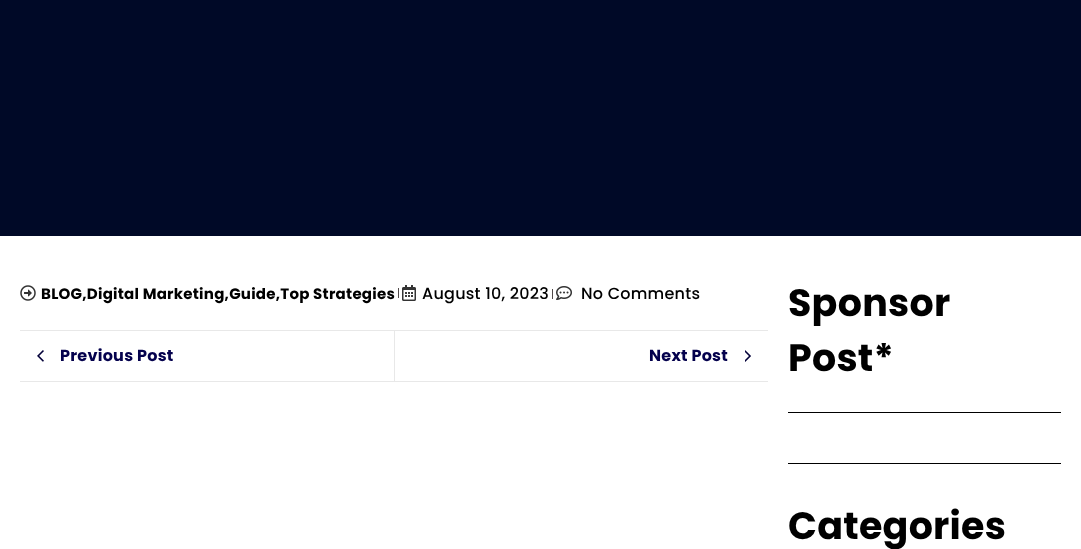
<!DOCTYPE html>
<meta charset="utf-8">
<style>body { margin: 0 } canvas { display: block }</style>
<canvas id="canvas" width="1081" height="549"></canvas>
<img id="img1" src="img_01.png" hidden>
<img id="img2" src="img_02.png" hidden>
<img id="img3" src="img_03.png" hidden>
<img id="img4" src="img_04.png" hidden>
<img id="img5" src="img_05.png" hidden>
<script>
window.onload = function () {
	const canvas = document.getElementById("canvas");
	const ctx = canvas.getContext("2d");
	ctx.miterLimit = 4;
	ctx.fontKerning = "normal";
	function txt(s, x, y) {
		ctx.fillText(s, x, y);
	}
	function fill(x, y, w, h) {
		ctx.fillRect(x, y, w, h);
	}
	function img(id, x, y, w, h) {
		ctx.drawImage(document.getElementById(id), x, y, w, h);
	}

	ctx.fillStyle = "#FFFFFF";
	fill(0, 0, 1081, 549);
	ctx.fillStyle = "#000927";
	fill(0, 0, 1081, 236);
	img("img1", 20, 285, 16, 16);
	ctx.fillStyle = "#514A4A";
	fill(398, 288, 1, 10);
	img("img2", 402, 285, 14, 16);
	fill(552, 289, 1, 10);
	img("img3", 556, 286, 16, 14);
	ctx.fillStyle = "#E8E8E8";
	fill(20, 330, 748, 1);
	fill(20, 381, 748, 1);
	img("img4", 37, 350, 7, 12);
	fill(394, 331, 1, 50);
	img("img5", 745, 350, 6, 12);
	ctx.fillStyle = "#000000";
	fill(788, 412, 273, 1);
	fill(788, 463, 273, 1);
	ctx.letterSpacing = "0.25px";
	ctx.font = "bold 15px Poppins";
	txt("BLOG,Digital Marketing,Guide,Top Strategies", 41, 299);
	ctx.font = "500 16px Poppins";
	txt("August 10, 2023", 422, 299);
	txt("No Comments", 581, 299);
	ctx.font = "bold 16px Poppins";
	ctx.fillStyle = "#04014D";
	txt("Previous Post", 60, 361);
	txt("Next Post", 649, 361);
	ctx.font = "bold 38px Poppins";
	ctx.fillStyle = "#000000";
	txt("Sponsor", 788, 316);
	txt("Post*", 788, 371);
	txt("Categories", 788, 539);
};
</script>
